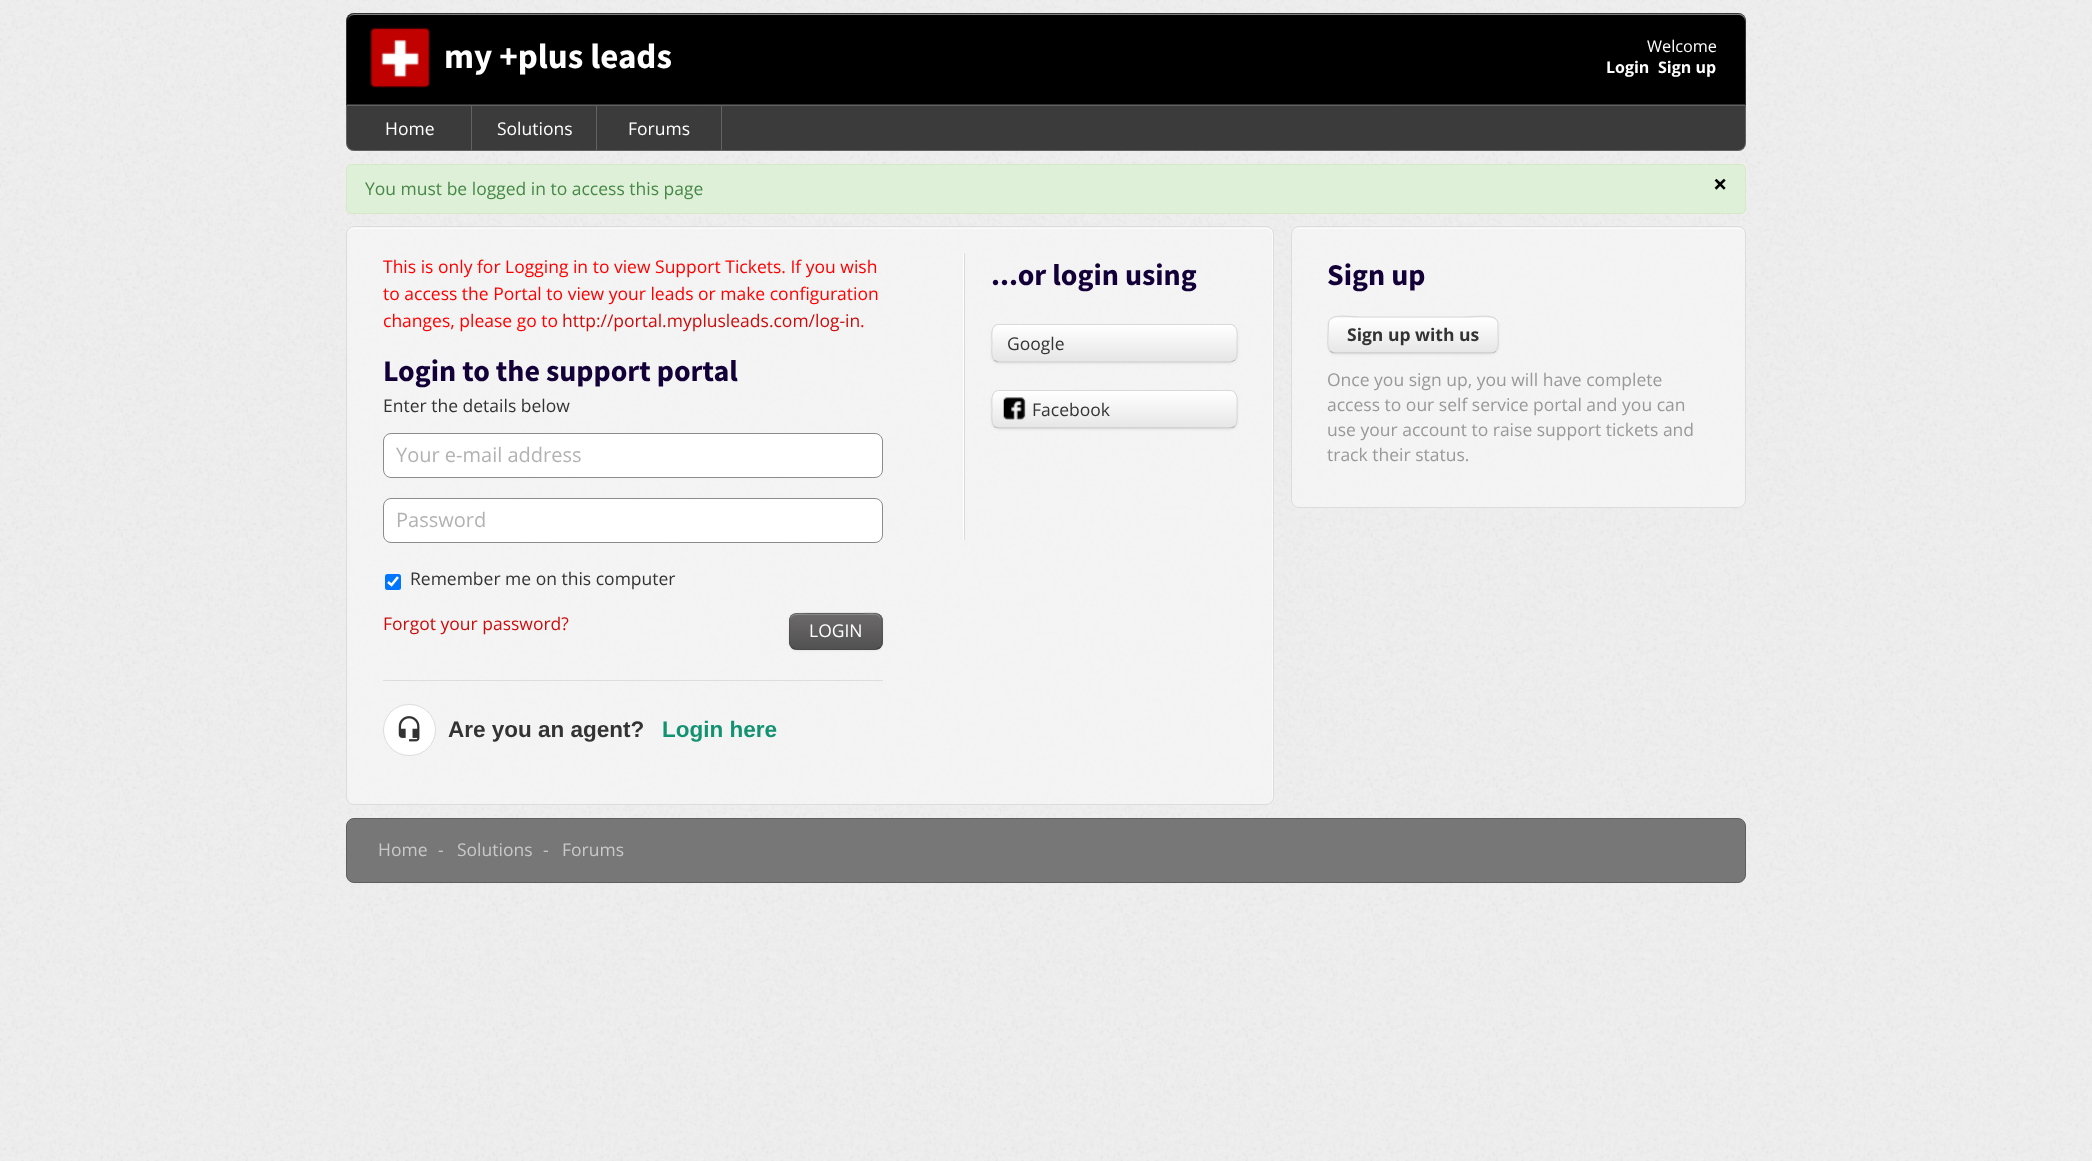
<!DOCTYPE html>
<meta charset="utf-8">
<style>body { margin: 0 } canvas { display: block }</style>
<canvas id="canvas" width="2092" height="1161"></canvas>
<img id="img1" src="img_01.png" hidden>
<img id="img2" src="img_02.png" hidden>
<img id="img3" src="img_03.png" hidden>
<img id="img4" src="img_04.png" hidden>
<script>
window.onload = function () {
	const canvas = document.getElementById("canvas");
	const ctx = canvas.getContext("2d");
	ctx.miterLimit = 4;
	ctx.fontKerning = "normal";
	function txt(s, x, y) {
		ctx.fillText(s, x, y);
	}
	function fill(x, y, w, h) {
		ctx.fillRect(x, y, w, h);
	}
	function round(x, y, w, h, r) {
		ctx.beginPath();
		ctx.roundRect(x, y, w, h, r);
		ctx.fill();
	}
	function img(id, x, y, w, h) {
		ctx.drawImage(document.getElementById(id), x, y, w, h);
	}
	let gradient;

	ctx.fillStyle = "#EFEFEF";
	fill(0, 0, 2092, 1161);
	img("img1", 0, 0, 2092, 1161);
	ctx.fillStyle = "#000000";
	ctx.beginPath();
	ctx.roundRect(346, 13, 1400, 92, [8, 8, 0, 0]);
	ctx.fill();
	ctx.fillStyle = "#808080";
	ctx.beginPath();
	ctx.moveTo(354, 15);
	ctx.lineTo(1739, 15);
	ctx.bezierCurveTo(1742, 15, 1745, 18, 1745, 21);
	ctx.bezierCurveTo(1745, 17, 1743, 14, 1739, 14);
	ctx.lineTo(354, 14);
	ctx.bezierCurveTo(350, 14, 348, 17, 348, 21);
	ctx.bezierCurveTo(348, 18, 350, 15, 354, 15);
	ctx.closePath();
	ctx.fill();
	ctx.beginPath();
	ctx.roundRect(346.5, 13.5, 1399, 91, [7.5, 7.5, 0, 0]);
	ctx.strokeStyle = "rgba(255, 255, 255, 0.2)";
	ctx.stroke();
	img("img2", 370, 27, 61, 61);
	ctx.fillStyle = "#3B3B3B";
	ctx.beginPath();
	ctx.roundRect(346, 105, 1400, 46, [0, 0, 8, 8]);
	ctx.fill();
	ctx.beginPath();
	ctx.roundRect(346.5, 105.5, 1399, 45, [0, 0, 7.5, 7.5]);
	ctx.stroke();
	ctx.fillStyle = "#626262";
	fill(471, 106, 1, 44);
	fill(596, 106, 1, 44);
	fill(721, 106, 1, 44);
	ctx.fillStyle = "#DFF0D8";
	ctx.beginPath();
	ctx.roundRect(346.5, 164.5, 1399, 49, 4.5);
	ctx.fill();
	ctx.strokeStyle = "#D6E9C6";
	ctx.stroke();
	ctx.fillStyle = "rgba(244, 244, 244, 0.9)";
	round(346, 226, 928, 579, 8);
	ctx.fillStyle = "#FBFBFB";
	ctx.beginPath();
	ctx.moveTo(354, 229);
	ctx.lineTo(1266, 229);
	ctx.bezierCurveTo(1270, 229, 1272, 232, 1272, 235);
	ctx.lineTo(1272, 799);
	ctx.bezierCurveTo(1272, 800, 1272, 801, 1271, 802);
	ctx.bezierCurveTo(1272, 801, 1273, 800, 1273, 798);
	ctx.lineTo(1273, 234);
	ctx.bezierCurveTo(1273, 231, 1270, 228, 1267, 228);
	ctx.lineTo(354, 228);
	ctx.bezierCurveTo(351, 228, 348, 231, 348, 234);
	ctx.lineTo(348, 235);
	ctx.bezierCurveTo(348, 232, 350, 229, 354, 229);
	ctx.closePath();
	ctx.fill();
	ctx.beginPath();
	ctx.roundRect(346.5, 226.5, 927, 578, 7.5);
	ctx.strokeStyle = "#DCDCDC";
	ctx.stroke();
	ctx.fillStyle = "#FFFFFF";
	ctx.beginPath();
	ctx.roundRect(383.5, 433.5, 499, 44, 7.5);
	ctx.fill();
	ctx.strokeStyle = "#8C8C8C";
	ctx.stroke();
	ctx.beginPath();
	ctx.roundRect(383.5, 498.5, 499, 44, 7.5);
	ctx.fill();
	ctx.stroke();
	ctx.fillStyle = "#0075FF";
	round(385, 574, 16, 16, 2.5);
	ctx.beginPath();
	ctx.moveTo(388, 582);
	ctx.lineTo(391.5, 585);
	ctx.lineTo(398, 577);
	ctx.strokeStyle = "#FFFFFF";
	ctx.lineWidth = 2.6;
	ctx.stroke();
	ctx.fillStyle = "rgba(0, 0, 0, 0.05)";
	ctx.filter = "blur(1px)";
	ctx.beginPath();
	ctx.roundRect(789, 614, 94, 37, 8);
	ctx.fill();
	ctx.filter = "none";
	ctx.fillStyle = "#626060";
	round(789, 613, 94, 37, 8);
	ctx.save();
	ctx.beginPath();
	ctx.roundRect(789, 613, 94, 37, 8);
	ctx.clip();
	gradient = ctx.createLinearGradient(836, 614, 836, 649);
	gradient.addColorStop(0, "#6C6A6A");
	gradient.addColorStop(1, "#525151");
	ctx.fillStyle = gradient;
	fill(789, 614, 94, 35);
	ctx.restore();
	ctx.fillStyle = "#898888";
	ctx.beginPath();
	ctx.moveTo(796, 615);
	ctx.lineTo(875, 615);
	ctx.bezierCurveTo(878, 615, 881, 618, 881, 621);
	ctx.bezierCurveTo(881, 611, 869, 614, 862, 614);
	ctx.lineTo(809, 614);
	ctx.bezierCurveTo(802, 614, 790, 611, 790, 621);
	ctx.bezierCurveTo(790, 618, 793, 615, 796, 615);
	ctx.closePath();
	ctx.fill();
	ctx.beginPath();
	ctx.moveTo(880, 647.5);
	ctx.bezierCurveTo(878.5, 648.5, 877, 649.5, 875, 649.5);
	ctx.lineTo(796, 649.5);
	ctx.bezierCurveTo(794.5, 649.5, 792.5, 648.5, 791.5, 647.5);
	ctx.strokeStyle = "rgba(0, 0, 0, 0.25)";
	ctx.lineWidth = 1.2;
	ctx.stroke();
	ctx.beginPath();
	ctx.moveTo(791.5, 647.5);
	ctx.bezierCurveTo(788, 644, 789.5, 635.5, 789.5, 631);
	ctx.bezierCurveTo(789.5, 611.5, 788.5, 613, 809.5, 613);
	ctx.lineTo(862, 613);
	ctx.bezierCurveTo(866.5, 613, 880, 610, 881.5, 618.5);
	ctx.lineTo(882, 627.5);
	ctx.bezierCurveTo(882, 632, 883.5, 643.5, 880, 647.5);
	ctx.strokeStyle = "rgba(0, 0, 0, 0.1)";
	ctx.stroke();
	ctx.fillStyle = "#DDDDDD";
	fill(383, 680, 500, 1);
	ctx.fillStyle = "#FFFFFF";
	ctx.beginPath();
	ctx.roundRect(383.5, 704.5, 52, 51, 25.5);
	ctx.fill();
	ctx.strokeStyle = "#DDDDDD";
	ctx.lineWidth = 1;
	ctx.stroke();
	img("img3", 398, 716, 22, 26);
	fill(963, 253, 1, 287);
	ctx.fillStyle = "#DADADA";
	fill(964, 253, 1, 287);
	ctx.fillStyle = "rgba(0, 0, 0, 0.05)";
	ctx.filter = "blur(1px)";
	ctx.beginPath();
	ctx.roundRect(991, 325, 247, 39, 8);
	ctx.fill();
	ctx.filter = "none";
	ctx.fillStyle = "#F5F5F5";
	round(991, 324, 247, 39, 8);
	ctx.save();
	ctx.beginPath();
	ctx.roundRect(991, 324, 247, 39, 8);
	ctx.clip();
	gradient = ctx.createLinearGradient(1114, 325, 1114, 361);
	gradient.addColorStop(0, "#FFFFFF");
	gradient.addColorStop(1, "#E6E6E6");
	ctx.fillStyle = gradient;
	fill(991, 325, 247, 36);
	ctx.restore();
	ctx.beginPath();
	ctx.moveTo(1235, 360);
	ctx.bezierCurveTo(1233.5, 361, 1232, 362, 1230, 362);
	ctx.lineTo(999, 362);
	ctx.bezierCurveTo(997, 362, 995, 361, 994, 360);
	ctx.strokeStyle = "#BFBFBF";
	ctx.lineWidth = 1.2;
	ctx.stroke();
	ctx.beginPath();
	ctx.moveTo(994, 360);
	ctx.bezierCurveTo(990.5, 356.5, 992, 347.5, 992, 343);
	ctx.bezierCurveTo(992, 337.5, 989.5, 324.5, 999, 324.5);
	ctx.lineTo(1230, 324.5);
	ctx.bezierCurveTo(1239.5, 324.5, 1237, 337.5, 1237, 343);
	ctx.bezierCurveTo(1237, 347.5, 1238.5, 356.5, 1235, 360);
	ctx.strokeStyle = "#D9D9D9";
	ctx.stroke();
	ctx.fillStyle = "rgba(0, 0, 0, 0.05)";
	ctx.filter = "blur(1px)";
	ctx.beginPath();
	ctx.roundRect(991, 391, 247, 39, 8);
	ctx.fill();
	ctx.filter = "none";
	ctx.fillStyle = "#F5F5F5";
	round(991, 390, 247, 39, 8);
	ctx.save();
	ctx.beginPath();
	ctx.roundRect(991, 390, 247, 39, 8);
	ctx.clip();
	gradient = ctx.createLinearGradient(1114, 391, 1114, 428);
	gradient.addColorStop(0, "#FFFFFF");
	gradient.addColorStop(1, "#E6E6E6");
	ctx.fillStyle = gradient;
	fill(991, 391, 247, 37);
	ctx.restore();
	ctx.beginPath();
	ctx.moveTo(1235, 426);
	ctx.bezierCurveTo(1233.5, 427.5, 1232, 428, 1230, 428);
	ctx.lineTo(999, 428);
	ctx.bezierCurveTo(997, 428, 995, 427.5, 994, 426);
	ctx.strokeStyle = "#BFBFBF";
	ctx.stroke();
	ctx.beginPath();
	ctx.moveTo(994, 426);
	ctx.bezierCurveTo(990.5, 422.5, 992, 413.5, 992, 409.5);
	ctx.bezierCurveTo(992, 404, 989.5, 390.5, 999, 390.5);
	ctx.lineTo(1230, 390.5);
	ctx.bezierCurveTo(1239.5, 390.5, 1237, 404, 1237, 409.5);
	ctx.bezierCurveTo(1237, 413.5, 1238.5, 422.5, 1235, 426);
	ctx.strokeStyle = "#D9D9D9";
	ctx.stroke();
	img("img4", 1003, 397, 23, 23);
	ctx.fillStyle = "rgba(244, 244, 244, 0.9)";
	round(1291, 226, 455, 282, 8);
	ctx.fillStyle = "#FBFBFB";
	ctx.beginPath();
	ctx.moveTo(1299, 229);
	ctx.lineTo(1739, 229);
	ctx.bezierCurveTo(1742, 229, 1745, 232, 1745, 235);
	ctx.lineTo(1745, 234);
	ctx.bezierCurveTo(1745, 231, 1742, 228, 1739, 228);
	ctx.lineTo(1299, 228);
	ctx.bezierCurveTo(1297, 228, 1295, 229, 1294, 231);
	ctx.bezierCurveTo(1295, 230, 1297, 229, 1299, 229);
	ctx.closePath();
	ctx.fill();
	ctx.beginPath();
	ctx.roundRect(1291.5, 226.5, 454, 281, 7.5);
	ctx.strokeStyle = "#DCDCDC";
	ctx.lineWidth = 1;
	ctx.stroke();
	ctx.fillStyle = "rgba(0, 0, 0, 0.05)";
	ctx.filter = "blur(1px)";
	ctx.beginPath();
	ctx.roundRect(1328, 318, 171, 37, 8);
	ctx.fill();
	ctx.filter = "none";
	ctx.fillStyle = "#F5F5F5";
	round(1328, 316, 171, 38, 8);
	ctx.save();
	ctx.beginPath();
	ctx.roundRect(1328, 316, 171, 38, 8);
	ctx.clip();
	gradient = ctx.createLinearGradient(1413, 318, 1413, 353);
	gradient.addColorStop(0, "#FFFFFF");
	gradient.addColorStop(1, "#E6E6E6");
	ctx.fillStyle = gradient;
	fill(1328, 318, 171, 35);
	ctx.restore();
	ctx.beginPath();
	ctx.moveTo(1496, 351);
	ctx.bezierCurveTo(1495, 352.5, 1493, 353, 1491, 353);
	ctx.lineTo(1335, 353);
	ctx.bezierCurveTo(1333, 353, 1331.5, 352.5, 1330, 351);
	ctx.strokeStyle = "#BFBFBF";
	ctx.lineWidth = 1.2;
	ctx.stroke();
	ctx.beginPath();
	ctx.moveTo(1330, 351);
	ctx.bezierCurveTo(1326.5, 347.5, 1328, 339.5, 1328, 335);
	ctx.lineTo(1328.5, 322.5);
	ctx.bezierCurveTo(1330.5, 312.5, 1351.5, 317, 1361, 317);
	ctx.lineTo(1465, 317);
	ctx.bezierCurveTo(1475, 317, 1496, 312.5, 1498, 322.5);
	ctx.lineTo(1498, 335);
	ctx.bezierCurveTo(1498, 339.5, 1499.5, 347.5, 1496, 351);
	ctx.strokeStyle = "#D9D9D9";
	ctx.stroke();
	ctx.fillStyle = "#777777";
	ctx.beginPath();
	ctx.roundRect(346.5, 818.5, 1399, 64, 7.5);
	ctx.fill();
	ctx.strokeStyle = "#5E5E5E";
	ctx.lineWidth = 1;
	ctx.stroke();
	ctx.font = "bold 35px Source Sans Pro";
	ctx.fillStyle = "#FFFFFF";
	txt("my +plus leads", 444, 68);
	ctx.font = "16.25px Open Sans";
	txt("Welcome", 1647, 52);
	ctx.font = "bold 16px Open Sans";
	txt("Login", 1606, 73);
	txt("Sign up", 1658, 73);
	ctx.font = "17.5px Open Sans";
	txt("Home", 385, 135);
	txt("Solutions", 497, 135);
	txt("Forums", 628, 135);
	ctx.fillStyle = "#468847";
	txt("You must be logged in to access this page", 365, 195);
	ctx.font = "bold 25px Open Sans";
	ctx.fillStyle = "#000000";
	txt("×", 1713, 193);
	ctx.font = "17.5px Open Sans";
	ctx.fillStyle = "#FF0000";
	txt("This is only for Logging in to view Support Tickets. If you wish", 383, 273);
	txt("to access the Portal to view your leads or make configuration", 383, 300);
	txt("changes, please go to", 383, 327);
	ctx.fillStyle = "#CC0C0C";
	txt("http://portal.myplusleads.com/log-in", 562, 327);
	ctx.fillStyle = "#FF0000";
	txt(".", 860, 327);
	ctx.font = "bold 30px Source Sans Pro";
	ctx.fillStyle = "#130038";
	txt("Login to the support portal", 383, 381);
	ctx.font = "17.5px Open Sans";
	ctx.fillStyle = "#333333";
	txt("Enter the details below", 383, 412);
	ctx.font = "20px Open Sans";
	ctx.fillStyle = "#B2B2B2";
	txt("Your e-mail address", 396, 462);
	txt("Password", 396, 527);
	ctx.font = "17.5px Open Sans";
	ctx.fillStyle = "#333333";
	txt("Remember me on this computer", 410, 585);
	ctx.fillStyle = "#CC0C0C";
	txt("Forgot your password?", 383, 630);
	ctx.fillStyle = "#FFFFFF";
	txt("LOGIN", 809, 637);
	ctx.font = "bold 22.5px Liberation Sans";
	ctx.fillStyle = "#333333";
	txt("Are you an agent?", 448, 737);
	ctx.fillStyle = "#139272";
	txt("Login here", 662, 737);
	ctx.font = "bold 30px Source Sans Pro";
	ctx.fillStyle = "#130038";
	txt("...or login using", 991, 285);
	ctx.font = "17.5px Open Sans";
	ctx.fillStyle = "#333333";
	txt("Google", 1007, 350);
	txt("Facebook", 1032, 416);
	ctx.font = "bold 30px Source Sans Pro";
	ctx.fillStyle = "#130038";
	txt("Sign up", 1327, 285);
	ctx.font = "bold 17.5px Open Sans";
	ctx.fillStyle = "#333333";
	txt("Sign up with us", 1347, 341);
	ctx.font = "17.5px Open Sans";
	ctx.fillStyle = "#999999";
	txt("Once you sign up, you will have complete", 1327, 386);
	txt("access to our self service portal and you can", 1327, 411);
	txt("use your account to raise support tickets and", 1327, 436);
	txt("track their status.", 1327, 461);
	ctx.fillStyle = "#C9C9C9";
	txt("Home", 378, 856);
	txt("-", 438, 856);
	txt("Solutions", 457, 856);
	txt("-", 543, 856);
	txt("Forums", 562, 856);
};
</script>
